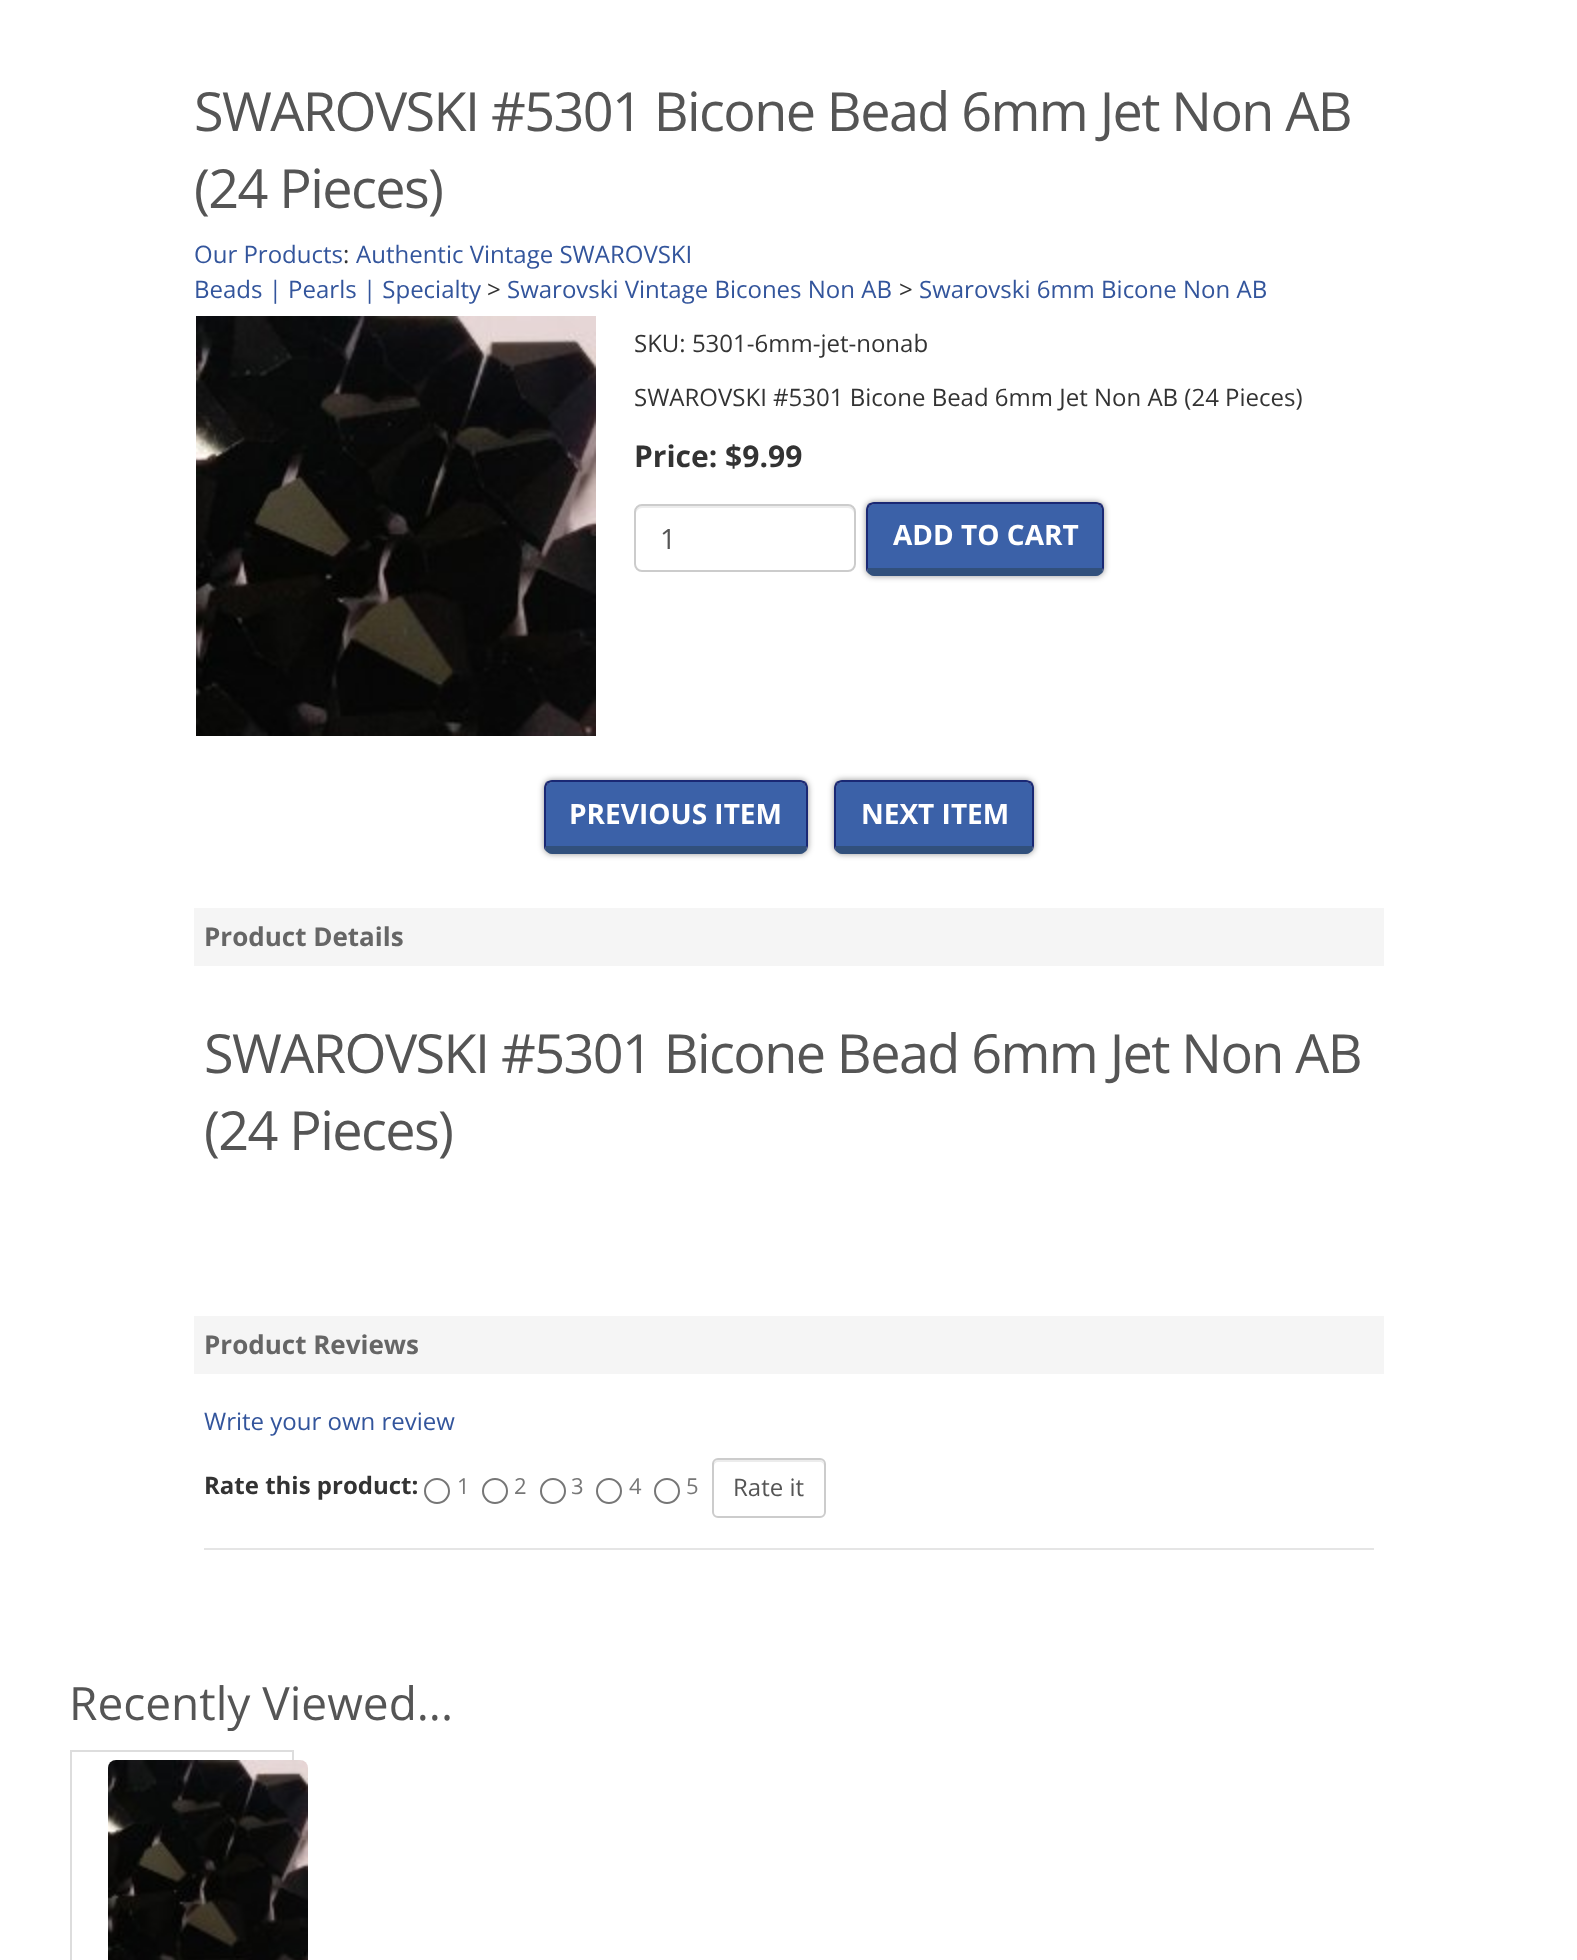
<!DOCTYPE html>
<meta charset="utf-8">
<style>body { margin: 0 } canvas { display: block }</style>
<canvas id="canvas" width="1577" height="1960"></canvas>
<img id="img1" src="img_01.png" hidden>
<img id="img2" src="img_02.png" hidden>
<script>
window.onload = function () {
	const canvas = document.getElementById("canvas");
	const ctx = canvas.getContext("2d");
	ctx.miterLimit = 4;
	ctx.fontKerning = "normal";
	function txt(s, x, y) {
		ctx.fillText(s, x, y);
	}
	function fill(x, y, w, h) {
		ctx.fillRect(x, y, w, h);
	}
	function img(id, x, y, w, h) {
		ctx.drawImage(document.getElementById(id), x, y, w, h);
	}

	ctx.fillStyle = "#FFFFFF";
	fill(0, 0, 1577, 1960);
	img("img1", 196, 316, 400, 420);
	ctx.fillStyle = "#ECECEC";
	ctx.beginPath();
	ctx.moveTo(642, 508);
	ctx.lineTo(848, 508);
	ctx.bezierCurveTo(851, 508, 854, 511, 854, 514);
	ctx.lineTo(854, 512);
	ctx.bezierCurveTo(854, 509, 851, 506, 848, 506);
	ctx.lineTo(642, 506);
	ctx.bezierCurveTo(639, 506, 636, 509, 636, 512);
	ctx.lineTo(636, 514);
	ctx.bezierCurveTo(636, 511, 639, 508, 642, 508);
	ctx.closePath();
	ctx.fill();
	ctx.beginPath();
	ctx.roundRect(635, 505, 220, 66, 7);
	ctx.strokeStyle = "#CCCCCC";
	ctx.lineWidth = 2;
	ctx.stroke();
	ctx.fillStyle = "rgba(0, 0, 0, 0.42)";
	ctx.filter = "blur(3px)";
	ctx.beginPath();
	ctx.roundRect(866, 502, 238, 74, 8);
	ctx.fill();
	ctx.filter = "none";
	ctx.fillStyle = "#3B61A8";
	ctx.beginPath();
	ctx.moveTo(874, 504);
	ctx.lineTo(1096, 504);
	ctx.bezierCurveTo(1099, 504, 1102, 507, 1102, 510);
	ctx.lineTo(1102, 568);
	ctx.lineTo(868, 568);
	ctx.lineTo(868, 510);
	ctx.bezierCurveTo(868, 507, 871, 504, 874, 504);
	ctx.closePath();
	ctx.fill();
	ctx.fillStyle = "#1A2874";
	ctx.beginPath();
	ctx.moveTo(874, 502);
	ctx.bezierCurveTo(872, 502, 870, 503, 868, 504);
	ctx.lineTo(870, 506);
	ctx.bezierCurveTo(871, 505, 872, 504, 874, 504);
	ctx.lineTo(1096, 504);
	ctx.bezierCurveTo(1098, 504, 1099, 505, 1100, 506);
	ctx.lineTo(1102, 504);
	ctx.bezierCurveTo(1100, 503, 1098, 502, 1096, 502);
	ctx.closePath();
	ctx.fill();
	ctx.beginPath();
	ctx.moveTo(1104, 568);
	ctx.lineTo(1104, 510);
	ctx.bezierCurveTo(1104, 508, 1103, 506, 1102, 504);
	ctx.lineTo(1100, 506);
	ctx.bezierCurveTo(1101, 507, 1102, 508, 1102, 510);
	ctx.lineTo(1102, 568);
	ctx.lineTo(1103, 572);
	ctx.closePath();
	ctx.fill();
	ctx.fillStyle = "#31507C";
	ctx.beginPath();
	ctx.moveTo(874, 576);
	ctx.lineTo(1096, 576);
	ctx.bezierCurveTo(1099, 576, 1101, 574, 1103, 572);
	ctx.lineTo(1102, 568);
	ctx.lineTo(868, 568);
	ctx.lineTo(867, 572);
	ctx.bezierCurveTo(869, 574, 871, 576, 874, 576);
	ctx.closePath();
	ctx.fill();
	ctx.fillStyle = "#1A2874";
	ctx.beginPath();
	ctx.moveTo(866, 510);
	ctx.lineTo(866, 568);
	ctx.bezierCurveTo(866, 569, 866, 571, 867, 572);
	ctx.lineTo(868, 568);
	ctx.lineTo(868, 510);
	ctx.bezierCurveTo(868, 508, 869, 507, 870, 506);
	ctx.lineTo(868, 504);
	ctx.bezierCurveTo(867, 506, 866, 508, 866, 510);
	ctx.closePath();
	ctx.fill();
	ctx.fillStyle = "rgba(0, 0, 0, 0.42)";
	ctx.filter = "blur(3px)";
	ctx.beginPath();
	ctx.roundRect(544, 780, 264, 74, 8);
	ctx.fill();
	ctx.filter = "none";
	ctx.fillStyle = "#3B61A8";
	ctx.beginPath();
	ctx.moveTo(552, 782);
	ctx.lineTo(800, 782);
	ctx.bezierCurveTo(803, 782, 806, 785, 806, 788);
	ctx.lineTo(806, 846);
	ctx.lineTo(546, 846);
	ctx.lineTo(546, 788);
	ctx.bezierCurveTo(546, 785, 549, 782, 552, 782);
	ctx.closePath();
	ctx.fill();
	ctx.fillStyle = "#1A2874";
	ctx.beginPath();
	ctx.moveTo(552, 780);
	ctx.bezierCurveTo(550, 780, 548, 781, 546, 782);
	ctx.lineTo(548, 784);
	ctx.bezierCurveTo(549, 783, 550, 782, 552, 782);
	ctx.lineTo(800, 782);
	ctx.bezierCurveTo(802, 782, 803, 783, 804, 784);
	ctx.lineTo(806, 782);
	ctx.bezierCurveTo(804, 781, 802, 780, 800, 780);
	ctx.closePath();
	ctx.fill();
	ctx.beginPath();
	ctx.moveTo(808, 846);
	ctx.lineTo(808, 788);
	ctx.bezierCurveTo(808, 786, 807, 784, 806, 782);
	ctx.lineTo(804, 784);
	ctx.bezierCurveTo(805, 785, 806, 786, 806, 788);
	ctx.lineTo(806, 846);
	ctx.lineTo(807, 850);
	ctx.closePath();
	ctx.fill();
	ctx.fillStyle = "#31507C";
	ctx.beginPath();
	ctx.moveTo(552, 854);
	ctx.lineTo(800, 854);
	ctx.bezierCurveTo(803, 854, 805, 852, 807, 850);
	ctx.lineTo(806, 846);
	ctx.lineTo(546, 846);
	ctx.lineTo(545, 850);
	ctx.bezierCurveTo(547, 852, 549, 854, 552, 854);
	ctx.closePath();
	ctx.fill();
	ctx.fillStyle = "#1A2874";
	ctx.beginPath();
	ctx.moveTo(544, 788);
	ctx.lineTo(544, 846);
	ctx.bezierCurveTo(544, 847, 544, 849, 545, 850);
	ctx.lineTo(546, 846);
	ctx.lineTo(546, 788);
	ctx.bezierCurveTo(546, 786, 547, 785, 548, 784);
	ctx.lineTo(546, 782);
	ctx.bezierCurveTo(545, 784, 544, 786, 544, 788);
	ctx.closePath();
	ctx.fill();
	ctx.fillStyle = "rgba(0, 0, 0, 0.42)";
	ctx.filter = "blur(3px)";
	ctx.beginPath();
	ctx.roundRect(834, 780, 200, 74, 8);
	ctx.fill();
	ctx.filter = "none";
	ctx.fillStyle = "#3B61A8";
	ctx.beginPath();
	ctx.moveTo(842, 782);
	ctx.lineTo(1026, 782);
	ctx.bezierCurveTo(1029, 782, 1032, 785, 1032, 788);
	ctx.lineTo(1032, 846);
	ctx.lineTo(836, 846);
	ctx.lineTo(836, 788);
	ctx.bezierCurveTo(836, 785, 839, 782, 842, 782);
	ctx.closePath();
	ctx.fill();
	ctx.fillStyle = "#1A2874";
	ctx.beginPath();
	ctx.moveTo(842, 780);
	ctx.bezierCurveTo(840, 780, 838, 781, 836, 782);
	ctx.lineTo(838, 784);
	ctx.bezierCurveTo(839, 783, 840, 782, 842, 782);
	ctx.lineTo(1026, 782);
	ctx.bezierCurveTo(1028, 782, 1029, 783, 1030, 784);
	ctx.lineTo(1032, 782);
	ctx.bezierCurveTo(1030, 781, 1028, 780, 1026, 780);
	ctx.closePath();
	ctx.fill();
	ctx.beginPath();
	ctx.moveTo(1034, 846);
	ctx.lineTo(1034, 788);
	ctx.bezierCurveTo(1034, 786, 1033, 784, 1032, 782);
	ctx.lineTo(1030, 784);
	ctx.bezierCurveTo(1031, 785, 1032, 786, 1032, 788);
	ctx.lineTo(1032, 846);
	ctx.lineTo(1033, 850);
	ctx.closePath();
	ctx.fill();
	ctx.fillStyle = "#31507C";
	ctx.beginPath();
	ctx.moveTo(842, 854);
	ctx.lineTo(1026, 854);
	ctx.bezierCurveTo(1029, 854, 1031, 852, 1033, 850);
	ctx.lineTo(1032, 846);
	ctx.lineTo(836, 846);
	ctx.lineTo(835, 850);
	ctx.bezierCurveTo(837, 852, 839, 854, 842, 854);
	ctx.closePath();
	ctx.fill();
	ctx.fillStyle = "#1A2874";
	ctx.beginPath();
	ctx.moveTo(834, 788);
	ctx.lineTo(834, 846);
	ctx.bezierCurveTo(834, 847, 834, 849, 835, 850);
	ctx.lineTo(836, 846);
	ctx.lineTo(836, 788);
	ctx.bezierCurveTo(836, 786, 837, 785, 838, 784);
	ctx.lineTo(836, 782);
	ctx.bezierCurveTo(835, 784, 834, 786, 834, 788);
	ctx.closePath();
	ctx.fill();
	ctx.fillStyle = "#F5F5F5";
	fill(194, 908, 1190, 58);
	fill(194, 1316, 1190, 58);
	ctx.beginPath();
	ctx.arc(437, 1491, 12, 0, Math.PI * 2);
	ctx.strokeStyle = "#767676";
	ctx.stroke();
	ctx.beginPath();
	ctx.arc(495, 1491, 12, 0, Math.PI * 2);
	ctx.stroke();
	ctx.beginPath();
	ctx.arc(553, 1491, 12, 0, Math.PI * 2);
	ctx.stroke();
	ctx.beginPath();
	ctx.arc(609, 1491, 12, 0, Math.PI * 2);
	ctx.stroke();
	ctx.beginPath();
	ctx.arc(667, 1491, 12, 0, Math.PI * 2);
	ctx.stroke();
	ctx.fillStyle = "#ECECEC";
	ctx.beginPath();
	ctx.moveTo(718, 1462);
	ctx.lineTo(820, 1462);
	ctx.bezierCurveTo(822, 1462, 824, 1464, 824, 1466);
	ctx.lineTo(824, 1464);
	ctx.bezierCurveTo(824, 1462, 822, 1460, 820, 1460);
	ctx.lineTo(718, 1460);
	ctx.bezierCurveTo(716, 1460, 714, 1462, 714, 1464);
	ctx.lineTo(714, 1466);
	ctx.bezierCurveTo(714, 1464, 716, 1462, 718, 1462);
	ctx.closePath();
	ctx.fill();
	ctx.beginPath();
	ctx.roundRect(713, 1459, 112, 58, 5);
	ctx.strokeStyle = "#CCCCCC";
	ctx.stroke();
	ctx.fillStyle = "#E5E5E5";
	fill(204, 1548, 1170, 2);
	ctx.strokeStyle = "#DDDDDD";
	ctx.strokeRect(71, 1751, 222, 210);
	img("img2", 108, 1760, 200, 200);
	ctx.letterSpacing = "-1.6px";
	ctx.font = "54px Open Sans";
	ctx.fillStyle = "#555555";
	txt("SWAROVSKI #5301 Bicone Bead 6mm Jet Non AB", 194, 131);
	txt("(24 Pieces)", 194, 208);
	ctx.letterSpacing = "0px";
	ctx.font = "24px Open Sans";
	ctx.fillStyle = "#33559C";
	txt("Our Products", 194, 263);
	ctx.fillStyle = "#333333";
	txt(":", 343, 263);
	ctx.fillStyle = "#33559C";
	txt("Authentic Vintage SWAROVSKI", 356, 263);
	txt("Beads | Pearls | Specialty", 194, 298);
	ctx.fillStyle = "#333333";
	txt(">", 487, 298);
	ctx.fillStyle = "#33559C";
	txt("Swarovski Vintage Bicones Non AB", 507, 298);
	ctx.fillStyle = "#333333";
	txt(">", 899, 298);
	ctx.fillStyle = "#33559C";
	txt("Swarovski 6mm Bicone Non AB", 919, 298);
	ctx.fillStyle = "#333333";
	txt("SKU: 5301-6mm-jet-nonab", 634, 352);
	txt("SWAROVSKI #5301 Bicone Bead 6mm Jet Non AB (24 Pieces)", 634, 406);
	ctx.font = "bold 30px Open Sans";
	txt("Price: $9.99", 634, 467);
	ctx.font = "28px Open Sans";
	ctx.fillStyle = "#555555";
	txt("1", 660, 549);
	ctx.font = "bold 28px Open Sans";
	ctx.fillStyle = "#FFFFFF";
	txt("ADD TO CART", 893, 545);
	txt("PREVIOUS ITEM", 569, 824);
	txt("NEXT ITEM", 861, 824);
	ctx.font = "bold 26px Open Sans";
	ctx.fillStyle = "#666666";
	txt("Product Details", 204, 946);
	ctx.letterSpacing = "-1.6px";
	ctx.font = "54px Open Sans";
	ctx.fillStyle = "#555555";
	txt("SWAROVSKI #5301 Bicone Bead 6mm Jet Non AB", 204, 1073);
	txt("(24 Pieces)", 204, 1150);
	ctx.letterSpacing = "0px";
	ctx.font = "bold 26px Open Sans";
	ctx.fillStyle = "#666666";
	txt("Product Reviews", 204, 1354);
	ctx.font = "24px Open Sans";
	ctx.fillStyle = "#33559C";
	txt("Write your own review", 204, 1430);
	ctx.font = "bold 24px Open Sans";
	ctx.fillStyle = "#333333";
	txt("Rate this product:", 204, 1494);
	ctx.font = "22px Open Sans";
	ctx.fillStyle = "#777777";
	txt("1", 457, 1494);
	txt("2", 514, 1494);
	txt("3", 571, 1494);
	txt("4", 629, 1494);
	txt("5", 686, 1494);
	ctx.font = "24px Open Sans";
	ctx.fillStyle = "#555555";
	txt("Rate it", 733, 1496);
	ctx.font = "46px Open Sans";
	txt("Recently Viewed...", 69, 1720);
};
</script>
